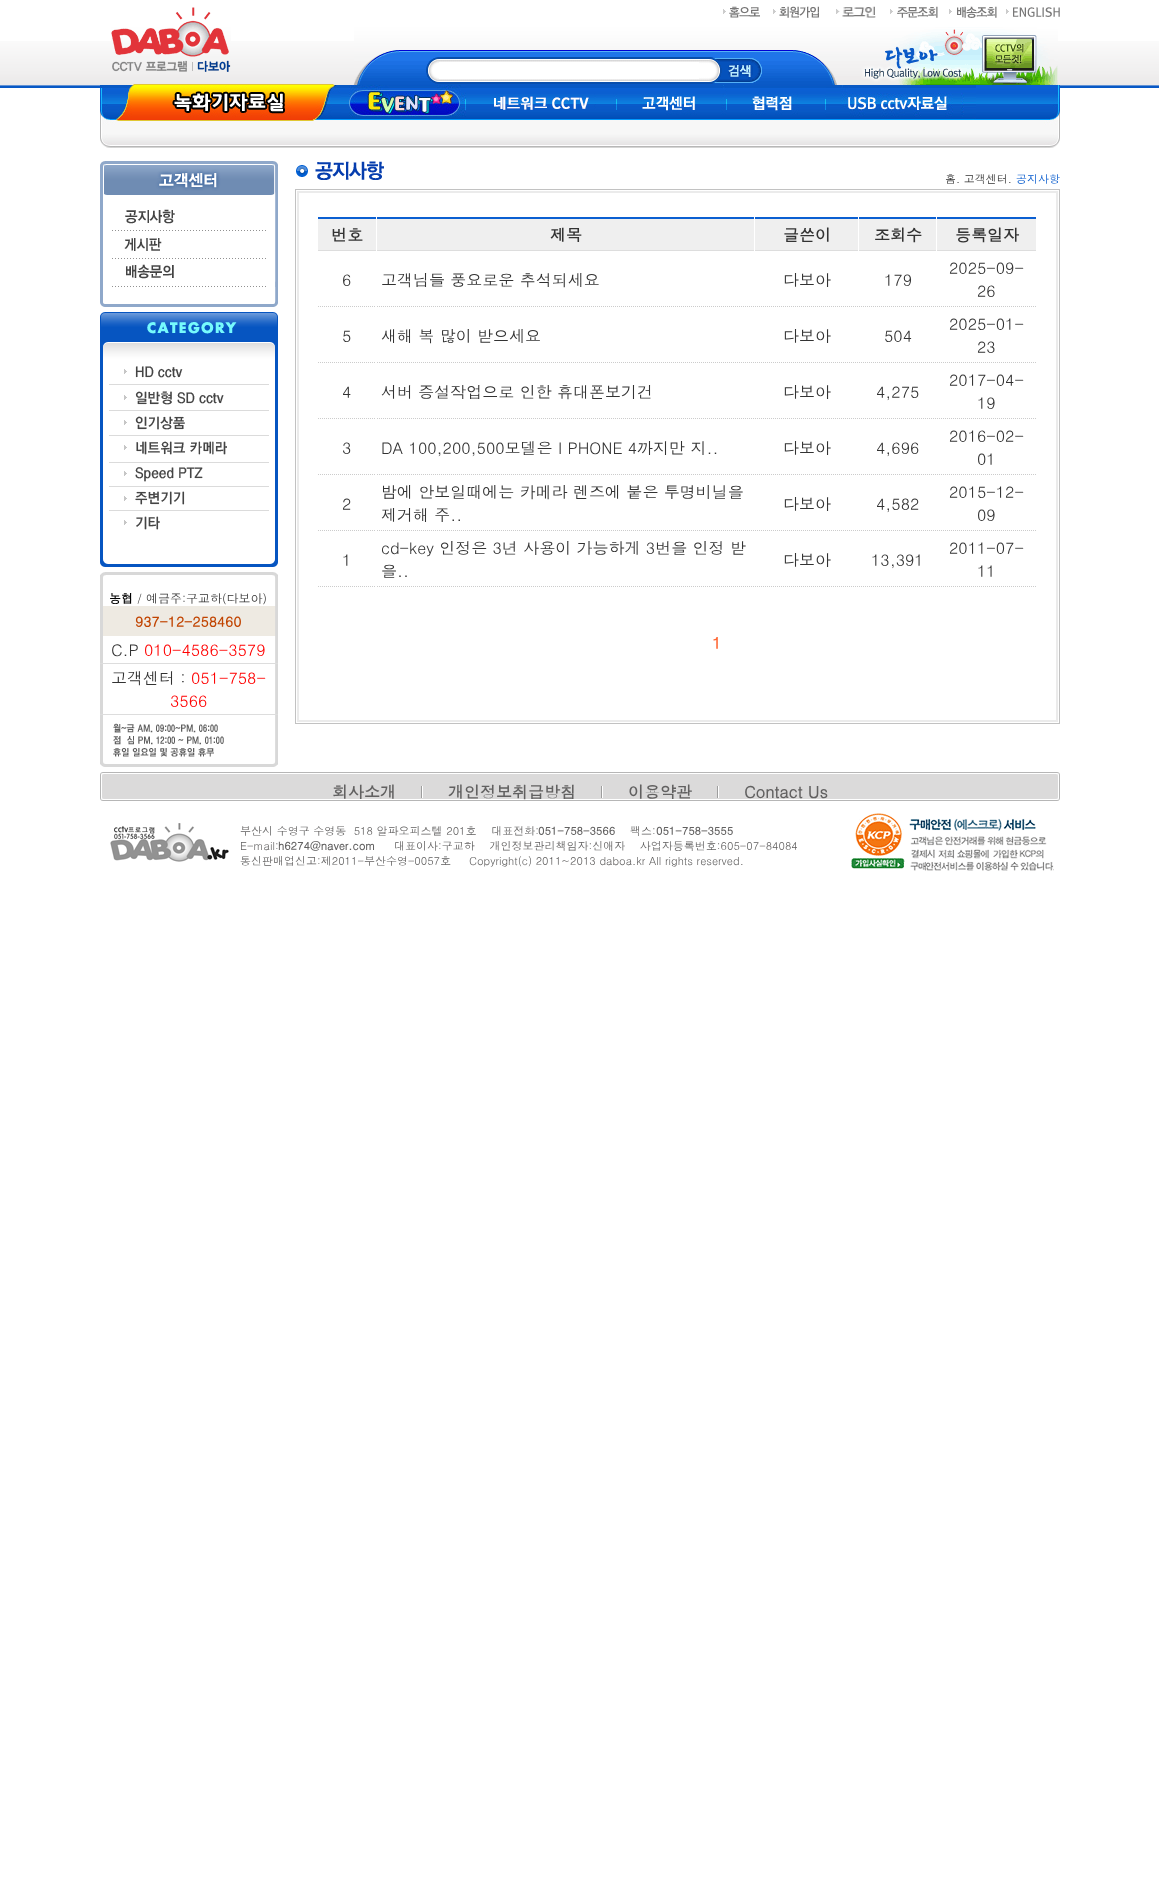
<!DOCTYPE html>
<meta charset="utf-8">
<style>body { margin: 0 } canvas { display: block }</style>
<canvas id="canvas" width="1159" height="1882"></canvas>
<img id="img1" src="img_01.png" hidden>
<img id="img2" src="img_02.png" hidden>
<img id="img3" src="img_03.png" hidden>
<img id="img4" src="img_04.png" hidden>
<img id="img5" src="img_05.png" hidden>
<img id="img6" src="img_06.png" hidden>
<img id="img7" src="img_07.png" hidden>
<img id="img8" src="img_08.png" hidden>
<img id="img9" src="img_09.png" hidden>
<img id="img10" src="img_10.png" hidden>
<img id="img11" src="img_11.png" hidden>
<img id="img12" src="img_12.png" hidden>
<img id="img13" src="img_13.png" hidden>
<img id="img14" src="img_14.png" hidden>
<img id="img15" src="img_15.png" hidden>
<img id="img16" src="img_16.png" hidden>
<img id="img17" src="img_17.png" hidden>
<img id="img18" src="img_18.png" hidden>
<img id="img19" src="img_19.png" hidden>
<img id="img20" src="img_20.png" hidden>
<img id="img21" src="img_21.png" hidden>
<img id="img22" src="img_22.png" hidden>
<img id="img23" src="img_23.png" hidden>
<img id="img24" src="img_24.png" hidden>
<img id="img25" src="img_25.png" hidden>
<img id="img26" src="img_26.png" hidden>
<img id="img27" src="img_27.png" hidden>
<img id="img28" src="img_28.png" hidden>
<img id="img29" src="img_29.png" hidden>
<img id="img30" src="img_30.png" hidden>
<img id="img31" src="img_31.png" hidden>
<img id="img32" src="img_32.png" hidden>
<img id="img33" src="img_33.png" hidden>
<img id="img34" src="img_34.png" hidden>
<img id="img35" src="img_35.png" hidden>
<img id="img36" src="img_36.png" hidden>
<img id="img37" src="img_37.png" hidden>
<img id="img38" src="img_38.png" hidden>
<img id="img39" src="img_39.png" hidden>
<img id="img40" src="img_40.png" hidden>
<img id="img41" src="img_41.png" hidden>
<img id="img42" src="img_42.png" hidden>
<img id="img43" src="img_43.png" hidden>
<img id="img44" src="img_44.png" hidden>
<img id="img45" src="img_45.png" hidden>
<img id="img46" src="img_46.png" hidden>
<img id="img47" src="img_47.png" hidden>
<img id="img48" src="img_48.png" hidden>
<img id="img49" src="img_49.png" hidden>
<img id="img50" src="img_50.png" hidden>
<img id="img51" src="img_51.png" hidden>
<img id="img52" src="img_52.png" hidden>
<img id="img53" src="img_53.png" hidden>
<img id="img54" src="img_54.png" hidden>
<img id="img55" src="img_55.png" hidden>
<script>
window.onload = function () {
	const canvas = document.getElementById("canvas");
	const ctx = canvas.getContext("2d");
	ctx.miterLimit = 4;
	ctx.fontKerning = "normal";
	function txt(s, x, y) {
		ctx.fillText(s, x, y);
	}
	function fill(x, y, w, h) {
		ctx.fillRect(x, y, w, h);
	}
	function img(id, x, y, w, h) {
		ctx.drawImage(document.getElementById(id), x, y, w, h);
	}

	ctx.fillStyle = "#FFFFFF";
	fill(0, 0, 1159, 1882);
	img("img1", 0, 41, 1159, 47);
	img("img2", 354, 27, 683, 57);
	img("img3", 111, 7, 120, 65);
	img("img4", 723, 6, 37, 12);
	img("img5", 773, 6, 46, 12);
	img("img6", 836, 6, 40, 12);
	img("img7", 890, 6, 48, 12);
	img("img8", 949, 6, 48, 12);
	img("img9", 1006, 7, 54, 10);
	img("img10", 426, 57, 13, 27);
	img("img11", 439, 57, 270, 27);
	fill(439, 62, 260, 17);
	img("img12", 709, 57, 53, 27);
	img("img13", 864, 29, 194, 55);
	img("img14", 100, 84, 960, 1);
	img("img15", 100, 85, 960, 63);
	img("img16", 100, 85, 241, 36);
	img("img17", 341, 85, 125, 32);
	img("img18", 466, 85, 151, 25);
	img("img19", 617, 85, 110, 30);
	img("img20", 727, 85, 98, 30);
	img("img21", 825, 85, 151, 35);
	img("img22", 100, 161, 178, 42);
	img("img23", 100, 203, 178, 28);
	img("img24", 112, 209, 154, 22);
	img("img23", 100, 231, 178, 28);
	img("img25", 112, 238, 154, 21);
	img("img23", 100, 259, 178, 28);
	img("img26", 112, 264, 164, 23);
	img("img27", 100, 287, 178, 14);
	img("img28", 100, 301, 178, 6);
	img("img29", 100, 312, 178, 48);
	img("img30", 100, 360, 178, 25);
	img("img31", 109, 366, 160, 19);
	img("img32", 100, 385, 178, 26);
	img("img33", 109, 391, 160, 20);
	img("img30", 100, 411, 178, 25);
	img("img34", 109, 416, 160, 20);
	img("img35", 100, 436, 178, 27);
	img("img36", 109, 441, 160, 22);
	img("img37", 100, 463, 178, 24);
	img("img38", 109, 467, 160, 20);
	img("img37", 100, 487, 178, 24);
	img("img39", 109, 491, 160, 20);
	img("img37", 100, 511, 178, 24);
	img("img40", 124, 516, 36, 14);
	img("img41", 100, 535, 178, 23);
	img("img42", 100, 558, 178, 9);
	img("img43", 100, 572, 178, 7);
	img("img44", 100, 579, 178, 27);
	img("img45", 100, 606, 178, 30);
	img("img44", 100, 636, 178, 27);
	ctx.fillStyle = "#DDDDDD";
	fill(100, 663, 178, 1);
	img("img46", 100, 664, 178, 50);
	fill(100, 714, 178, 1);
	img("img47", 100, 715, 178, 52);
	img("img48", 296, 161, 88, 19);
	img("img49", 295, 189, 765, 4);
	img("img50", 295, 193, 765, 527);
	ctx.fillStyle = "#EFEFEF";
	fill(318, 219, 58, 31);
	ctx.fillStyle = "#0B5FD1";
	fill(318, 217, 58, 2);
	ctx.fillStyle = "#DDDDDD";
	fill(318, 250, 58, 1);
	ctx.fillStyle = "#EFEFEF";
	fill(377, 219, 377, 31);
	ctx.fillStyle = "#0B5FD1";
	fill(377, 217, 377, 2);
	ctx.fillStyle = "#DDDDDD";
	fill(377, 250, 377, 1);
	ctx.fillStyle = "#EFEFEF";
	fill(755, 219, 103, 31);
	ctx.fillStyle = "#0B5FD1";
	fill(755, 217, 103, 2);
	ctx.fillStyle = "#DDDDDD";
	fill(755, 250, 103, 1);
	ctx.fillStyle = "#EFEFEF";
	fill(859, 219, 77, 31);
	ctx.fillStyle = "#0B5FD1";
	fill(859, 217, 77, 2);
	ctx.fillStyle = "#DDDDDD";
	fill(859, 250, 77, 1);
	ctx.fillStyle = "#EFEFEF";
	fill(937, 219, 99, 31);
	ctx.fillStyle = "#0B5FD1";
	fill(937, 217, 99, 2);
	ctx.fillStyle = "#DDDDDD";
	fill(937, 250, 99, 1);
	ctx.beginPath();
	ctx.moveTo(318, 306.5);
	ctx.lineTo(376, 306.5);
	ctx.strokeStyle = "#CCCCCC";
	ctx.setLineDash([1, 1]);
	ctx.stroke();
	ctx.beginPath();
	ctx.moveTo(377, 306.5);
	ctx.lineTo(754, 306.5);
	ctx.stroke();
	ctx.beginPath();
	ctx.moveTo(755, 306.5);
	ctx.lineTo(858, 306.5);
	ctx.stroke();
	ctx.beginPath();
	ctx.moveTo(859, 306.5);
	ctx.lineTo(936, 306.5);
	ctx.stroke();
	ctx.beginPath();
	ctx.moveTo(937, 306.5);
	ctx.lineTo(1036, 306.5);
	ctx.stroke();
	ctx.beginPath();
	ctx.moveTo(318, 362.5);
	ctx.lineTo(376, 362.5);
	ctx.stroke();
	ctx.beginPath();
	ctx.moveTo(377, 362.5);
	ctx.lineTo(754, 362.5);
	ctx.stroke();
	ctx.beginPath();
	ctx.moveTo(755, 362.5);
	ctx.lineTo(858, 362.5);
	ctx.stroke();
	ctx.beginPath();
	ctx.moveTo(859, 362.5);
	ctx.lineTo(936, 362.5);
	ctx.stroke();
	ctx.beginPath();
	ctx.moveTo(937, 362.5);
	ctx.lineTo(1036, 362.5);
	ctx.stroke();
	ctx.beginPath();
	ctx.moveTo(318, 418.5);
	ctx.lineTo(376, 418.5);
	ctx.stroke();
	ctx.beginPath();
	ctx.moveTo(377, 418.5);
	ctx.lineTo(754, 418.5);
	ctx.stroke();
	ctx.beginPath();
	ctx.moveTo(755, 418.5);
	ctx.lineTo(858, 418.5);
	ctx.stroke();
	ctx.beginPath();
	ctx.moveTo(859, 418.5);
	ctx.lineTo(936, 418.5);
	ctx.stroke();
	ctx.beginPath();
	ctx.moveTo(937, 418.5);
	ctx.lineTo(1036, 418.5);
	ctx.stroke();
	ctx.beginPath();
	ctx.moveTo(318, 474.5);
	ctx.lineTo(376, 474.5);
	ctx.stroke();
	ctx.beginPath();
	ctx.moveTo(377, 474.5);
	ctx.lineTo(754, 474.5);
	ctx.stroke();
	ctx.beginPath();
	ctx.moveTo(755, 474.5);
	ctx.lineTo(858, 474.5);
	ctx.stroke();
	ctx.beginPath();
	ctx.moveTo(859, 474.5);
	ctx.lineTo(936, 474.5);
	ctx.stroke();
	ctx.beginPath();
	ctx.moveTo(937, 474.5);
	ctx.lineTo(1036, 474.5);
	ctx.stroke();
	ctx.beginPath();
	ctx.moveTo(318, 530.5);
	ctx.lineTo(376, 530.5);
	ctx.stroke();
	ctx.beginPath();
	ctx.moveTo(377, 530.5);
	ctx.lineTo(754, 530.5);
	ctx.stroke();
	ctx.beginPath();
	ctx.moveTo(755, 530.5);
	ctx.lineTo(858, 530.5);
	ctx.stroke();
	ctx.beginPath();
	ctx.moveTo(859, 530.5);
	ctx.lineTo(936, 530.5);
	ctx.stroke();
	ctx.beginPath();
	ctx.moveTo(937, 530.5);
	ctx.lineTo(1036, 530.5);
	ctx.stroke();
	ctx.beginPath();
	ctx.moveTo(318, 586.5);
	ctx.lineTo(376, 586.5);
	ctx.stroke();
	ctx.beginPath();
	ctx.moveTo(377, 586.5);
	ctx.lineTo(754, 586.5);
	ctx.stroke();
	ctx.beginPath();
	ctx.moveTo(755, 586.5);
	ctx.lineTo(858, 586.5);
	ctx.stroke();
	ctx.beginPath();
	ctx.moveTo(859, 586.5);
	ctx.lineTo(936, 586.5);
	ctx.stroke();
	ctx.beginPath();
	ctx.moveTo(937, 586.5);
	ctx.lineTo(1036, 586.5);
	ctx.stroke();
	img("img51", 295, 720, 765, 4);
	img("img52", 100, 772, 960, 29);
	img("img53", 421, 786, 2, 12);
	img("img53", 601, 786, 2, 12);
	img("img53", 717, 786, 2, 12);
	img("img54", 110, 823, 119, 39);
	img("img55", 851, 813, 203, 58);
	ctx.font = "bold 12px Dotum";
	ctx.fillStyle = "#000000";
	txt("농협", 109, 603);
	ctx.font = "12px Dotum";
	ctx.fillStyle = "#333333";
	txt("/ 예금주:구교하(다보아)", 137, 603);
	ctx.font = "bold 14px Dotum";
	ctx.fillStyle = "#C14400";
	txt("937-12-258460", 135, 627);
	ctx.font = "16px Dotum";
	ctx.fillStyle = "#333333";
	txt("C.P", 111, 656);
	ctx.fillStyle = "#FF0000";
	txt("010-4586-3579", 144, 656);
	ctx.fillStyle = "#333333";
	txt("고객센터 :", 111, 684);
	ctx.fillStyle = "#FF0000";
	txt("051-758-", 191, 684);
	txt("3566", 170, 707);
	ctx.font = "11px Dotum";
	ctx.fillStyle = "#333333";
	txt("홈. 고객센터.", 945, 183);
	ctx.fillStyle = "#0157CC";
	txt("공지사항", 1016, 183);
	ctx.font = "bold 16px Dotum";
	ctx.fillStyle = "#333333";
	txt("번호", 331, 241);
	txt("제목", 550, 241);
	txt("글쓴이", 783, 241);
	txt("조회수", 874, 241);
	txt("등록일자", 955, 241);
	ctx.font = "16px Dotum";
	txt("6", 342, 286);
	txt("고객님들 풍요로운 추석되세요", 381, 286);
	txt("다보아", 783, 286);
	txt("179", 884, 286);
	txt("2025-09-", 949, 274);
	txt("26", 977, 297);
	txt("5", 342, 342);
	txt("새해 복 많이 받으세요", 381, 342);
	txt("다보아", 783, 342);
	txt("504", 884, 342);
	txt("2025-01-", 949, 330);
	txt("23", 977, 353);
	txt("4", 342, 398);
	txt("서버 증설작업으로 인한 휴대폰보기건", 381, 398);
	txt("다보아", 783, 398);
	txt("4,275", 876, 398);
	txt("2017-04-", 949, 386);
	txt("19", 977, 409);
	txt("3", 342, 454);
	txt("DA 100,200,500모델은 I PHONE 4까지만 지..", 381, 454);
	txt("다보아", 783, 454);
	txt("4,696", 876, 454);
	txt("2016-02-", 949, 442);
	txt("01", 977, 465);
	txt("2", 342, 510);
	txt("밤에 안보일때에는 카메라 렌즈에 붙은 투명비닐을", 381, 498);
	txt("제거해 주..", 381, 521);
	txt("다보아", 783, 510);
	txt("4,582", 876, 510);
	txt("2015-12-", 949, 498);
	txt("09", 977, 521);
	txt("1", 342, 566);
	txt("cd-key 인정은 3년 사용이 가능하게 3번을 인정 받", 381, 554);
	txt("을..", 381, 577);
	txt("다보아", 783, 566);
	txt("13,391", 871, 566);
	txt("2011-07-", 949, 554);
	txt("11", 977, 577);
	ctx.font = "bold 16px Dotum";
	ctx.fillStyle = "#FF6633";
	txt("1", 712, 649);
	ctx.fillStyle = "#626161";
	txt("회사소개", 332, 798);
	txt("개인정보취급방침", 448, 798);
	txt("이용약관", 628, 798);
	txt("Contact Us", 744, 798);
	ctx.font = "11px Dotum";
	txt("부산시 수영구 수영동  518 알파오피스텔 201호    대표전화:", 240, 835);
	ctx.font = "bold 11px Dotum";
	txt("051-758-3566", 538, 835);
	ctx.font = "11px Dotum";
	txt("팩스:", 630, 835);
	ctx.font = "bold 11px Dotum";
	txt("051-758-3555", 656, 835);
	ctx.font = "11px Dotum";
	txt("E-mail:", 240, 850);
	ctx.font = "bold 11px Dotum";
	txt("h6274@naver.com", 278, 850);
	ctx.font = "11px Dotum";
	txt("대표이사:구교하    개인정보관리책임자:신애자    사업자등록번호:605-07-84084", 394, 850);
	txt("통신판매업신고:제2011-부산수영-0057호", 240, 865);
	txt("Copyright(c) 2011~2013 daboa.kr All rights reserved.", 469, 865);
};
</script>
